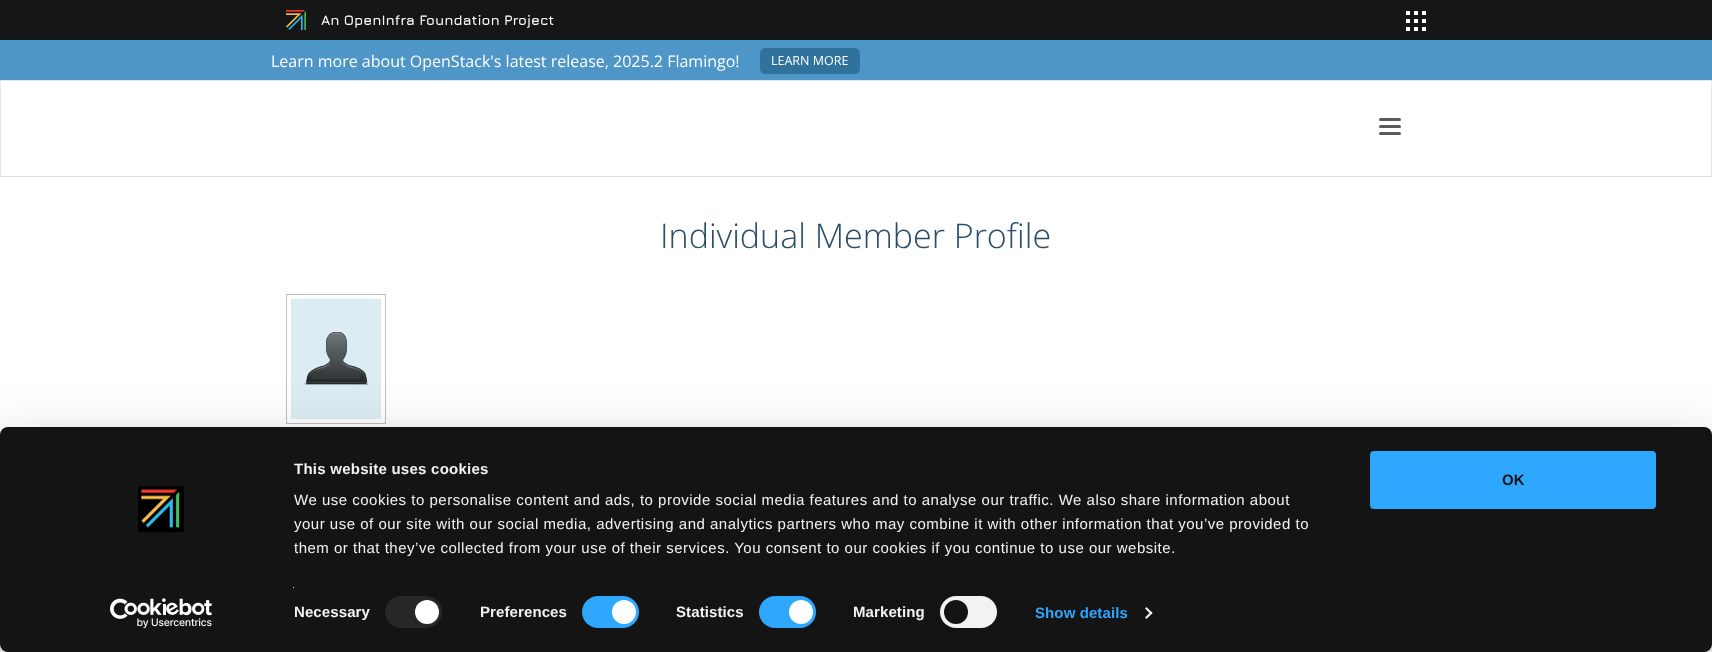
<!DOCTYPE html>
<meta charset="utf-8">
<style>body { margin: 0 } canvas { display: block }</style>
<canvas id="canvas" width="1712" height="652"></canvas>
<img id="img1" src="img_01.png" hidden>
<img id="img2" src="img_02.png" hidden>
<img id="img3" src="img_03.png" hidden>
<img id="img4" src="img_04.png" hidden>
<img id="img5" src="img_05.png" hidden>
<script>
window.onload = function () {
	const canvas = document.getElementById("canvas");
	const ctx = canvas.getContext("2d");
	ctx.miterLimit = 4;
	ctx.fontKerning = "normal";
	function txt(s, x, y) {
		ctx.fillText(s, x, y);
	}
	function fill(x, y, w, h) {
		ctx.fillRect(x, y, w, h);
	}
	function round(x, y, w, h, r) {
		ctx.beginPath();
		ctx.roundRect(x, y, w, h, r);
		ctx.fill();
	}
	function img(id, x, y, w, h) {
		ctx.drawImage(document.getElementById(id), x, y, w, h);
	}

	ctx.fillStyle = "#FFFFFF";
	fill(0, 0, 1712, 652);
	ctx.fillStyle = "#161616";
	fill(0, 0, 1712, 40);
	img("img1", 286, 10, 20, 20);
	img("img2", 1406, 11, 20, 20);
	ctx.fillStyle = "#4D96C7";
	fill(0, 40, 1712, 40);
	ctx.fillStyle = "#2F729C";
	ctx.beginPath();
	ctx.roundRect(760.5, 48.5, 99, 25, 4.5);
	ctx.fill();
	ctx.strokeStyle = "#2F729C";
	ctx.stroke();
	ctx.fillStyle = "#E7E7E7";
	fill(0, 80, 1712, 1);
	fill(1711, 80, 1, 97);
	ctx.fillStyle = "#DDDDDD";
	fill(0, 176, 1712, 1);
	ctx.fillStyle = "#E7E7E7";
	fill(0, 80, 1, 97);
	ctx.fillStyle = "#5A5A5A";
	round(1379, 118, 22, 3, 1.5);
	round(1379, 125, 22, 3, 1.5);
	round(1379, 132, 22, 3, 1.5);
	img("img3", 286, 294, 100, 130);
	ctx.fillStyle = "rgba(0, 0, 0, 0.3)";
	ctx.filter = "blur(35px)";
	ctx.beginPath();
	ctx.roundRect(0, 457, 1712, 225, 8);
	ctx.fill();
	ctx.filter = "none";
	ctx.fillStyle = "#141414";
	round(0, 427, 1712, 225, 8);
	ctx.fillStyle = "#E5E5E5";
	fill(293, 587, 1, 1);
	ctx.fillStyle = "#272727";
	round(385, 596, 57, 32, 16);
	ctx.fillStyle = "#FFFFFF";
	ctx.beginPath();
	ctx.arc(427, 612, 12, 0, Math.PI * 2);
	ctx.fill();
	ctx.fillStyle = "#2EA7FF";
	round(582, 596, 57, 32, 16);
	ctx.fillStyle = "#FFFFFF";
	ctx.beginPath();
	ctx.arc(624, 612, 12, 0, Math.PI * 2);
	ctx.fill();
	ctx.fillStyle = "#2EA7FF";
	round(759, 596, 57, 32, 16);
	ctx.fillStyle = "#FFFFFF";
	ctx.beginPath();
	ctx.arc(801, 612, 12, 0, Math.PI * 2);
	ctx.fill();
	ctx.fillStyle = "#F2F2F2";
	round(940, 596, 57, 32, 16);
	ctx.fillStyle = "#141414";
	ctx.beginPath();
	ctx.arc(956, 612, 12, 0, Math.PI * 2);
	ctx.fill();
	ctx.fillStyle = "#F2F2F2";
	ctx.beginPath();
	ctx.moveTo(1146.5, 607);
	ctx.lineTo(1152.5, 613);
	ctx.lineTo(1151, 614.5);
	ctx.lineTo(1145, 608.5);
	ctx.closePath();
	ctx.fill();
	ctx.beginPath();
	ctx.moveTo(1151, 611.5);
	ctx.lineTo(1152.5, 613);
	ctx.lineTo(1146.5, 619);
	ctx.lineTo(1145, 617.5);
	ctx.closePath();
	ctx.fill();
	ctx.fillStyle = "#2EA7FF";
	ctx.beginPath();
	ctx.roundRect(1371, 452, 284, 56, 3);
	ctx.fill();
	ctx.strokeStyle = "#2EA7FF";
	ctx.lineWidth = 2;
	ctx.stroke();
	img("img4", 138, 486, 46, 47);
	img("img5", 110, 598, 102, 30);
	ctx.font = "300 14px Jura";
	ctx.fillStyle = "#FFFFFF";
	txt("An OpenInfra Foundation Project", 321, 25);
	ctx.font = "16px Open Sans";
	txt("Learn more about OpenStack's latest release, 2025.2 Flamingo!", 271, 67);
	ctx.font = "12.5px Open Sans";
	txt("LEARN MORE", 771, 65);
	ctx.font = "300 34px Open Sans";
	ctx.fillStyle = "#2A4E68";
	txt("Individual Member Profile", 660, 248);
	ctx.letterSpacing = "0.25px";
	ctx.font = "bold 15px Liberation Sans";
	ctx.fillStyle = "#F2F2F2";
	txt("This website uses cookies", 294, 474);
	ctx.letterSpacing = "0.5px";
	ctx.font = "15px Liberation Sans";
	txt("We use cookies to personalise content and ads, to provide social media features and to analyse our traffic. We also share information about", 294, 505);
	txt("your use of our site with our social media, advertising and analytics partners who may combine it with other information that you’ve provided to", 294, 529);
	txt("them or that they’ve collected from your use of their services. You consent to our cookies if you continue to use our website.", 294, 553);
	ctx.letterSpacing = "0.1px";
	ctx.font = "bold 15px Liberation Sans";
	txt("Necessary", 294, 617);
	txt("Preferences", 480, 617);
	txt("Statistics", 676, 617);
	txt("Marketing", 853, 617);
	ctx.fillStyle = "#2EA7FF";
	txt("Show details", 1035, 618);
	ctx.letterSpacing = "0px";
	ctx.fillStyle = "#141414";
	txt("OK", 1502, 485);
};
</script>
